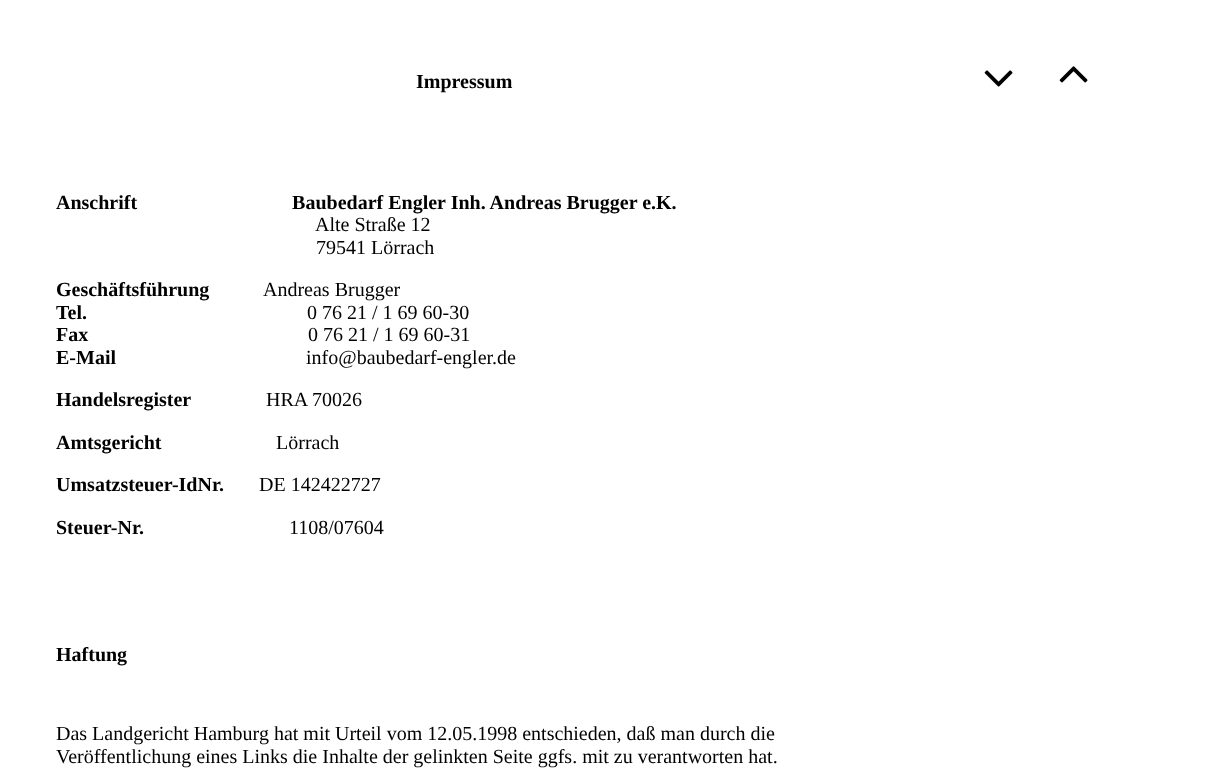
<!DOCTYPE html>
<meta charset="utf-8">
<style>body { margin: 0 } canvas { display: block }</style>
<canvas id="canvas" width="1227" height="768"></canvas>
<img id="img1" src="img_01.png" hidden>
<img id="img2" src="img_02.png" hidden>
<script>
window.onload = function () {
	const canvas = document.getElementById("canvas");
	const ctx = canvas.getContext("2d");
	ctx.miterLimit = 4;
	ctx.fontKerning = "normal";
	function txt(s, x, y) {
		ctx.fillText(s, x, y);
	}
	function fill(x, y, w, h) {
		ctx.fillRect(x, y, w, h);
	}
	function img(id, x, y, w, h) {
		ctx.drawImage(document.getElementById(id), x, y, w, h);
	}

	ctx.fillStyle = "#FFFFFF";
	fill(0, 0, 1227, 768);
	img("img1", 984, 70, 29, 17);
	img("img2", 1059, 66, 29, 17);
	ctx.font = "bold 20px Liberation Serif";
	ctx.fillStyle = "#000000";
	txt("Impressum", 416, 88);
	txt("Anschrift                               Baubedarf Engler Inh. Andreas Brugger e.K.", 56, 209);
	ctx.font = "20px Liberation Serif";
	txt("Alte Straße 12", 315, 231);
	txt("79541 Lörrach", 316, 254);
	ctx.font = "bold 20px Liberation Serif";
	txt("Geschäftsführung", 56, 296);
	ctx.font = "20px Liberation Serif";
	txt("Andreas Brugger", 263, 296);
	ctx.font = "bold 20px Liberation Serif";
	txt("Tel.", 56, 319);
	ctx.font = "20px Liberation Serif";
	txt("0 76 21 / 1 69 60-30", 307, 319);
	ctx.font = "bold 20px Liberation Serif";
	txt("Fax", 56, 341);
	ctx.font = "20px Liberation Serif";
	txt("0 76 21 / 1 69 60-31", 308, 341);
	ctx.font = "bold 20px Liberation Serif";
	txt("E-Mail", 56, 364);
	ctx.font = "20px Liberation Serif";
	txt("info@baubedarf-engler.de", 306, 364);
	ctx.font = "bold 20px Liberation Serif";
	txt("Handelsregister", 56, 406);
	ctx.font = "20px Liberation Serif";
	txt("HRA 70026", 266, 406);
	ctx.font = "bold 20px Liberation Serif";
	txt("Amtsgericht", 56, 449);
	ctx.font = "20px Liberation Serif";
	txt("Lörrach", 276, 449);
	ctx.font = "bold 20px Liberation Serif";
	txt("Umsatzsteuer-IdNr.", 56, 491);
	ctx.font = "20px Liberation Serif";
	txt("DE 142422727", 259, 491);
	ctx.font = "bold 20px Liberation Serif";
	txt("Steuer-Nr.", 56, 534);
	ctx.font = "20px Liberation Serif";
	txt("1108/07604", 289, 534);
	ctx.font = "bold 20px Liberation Serif";
	txt("Haftung", 56, 661);
	ctx.font = "20px Liberation Serif";
	txt("Das Landgericht Hamburg hat mit Urteil vom 12.05.1998 entschieden, daß man durch die", 56, 740);
	txt("Veröffentlichung eines Links die Inhalte der gelinkten Seite ggfs. mit zu verantworten hat.", 56, 763);
};
</script>
